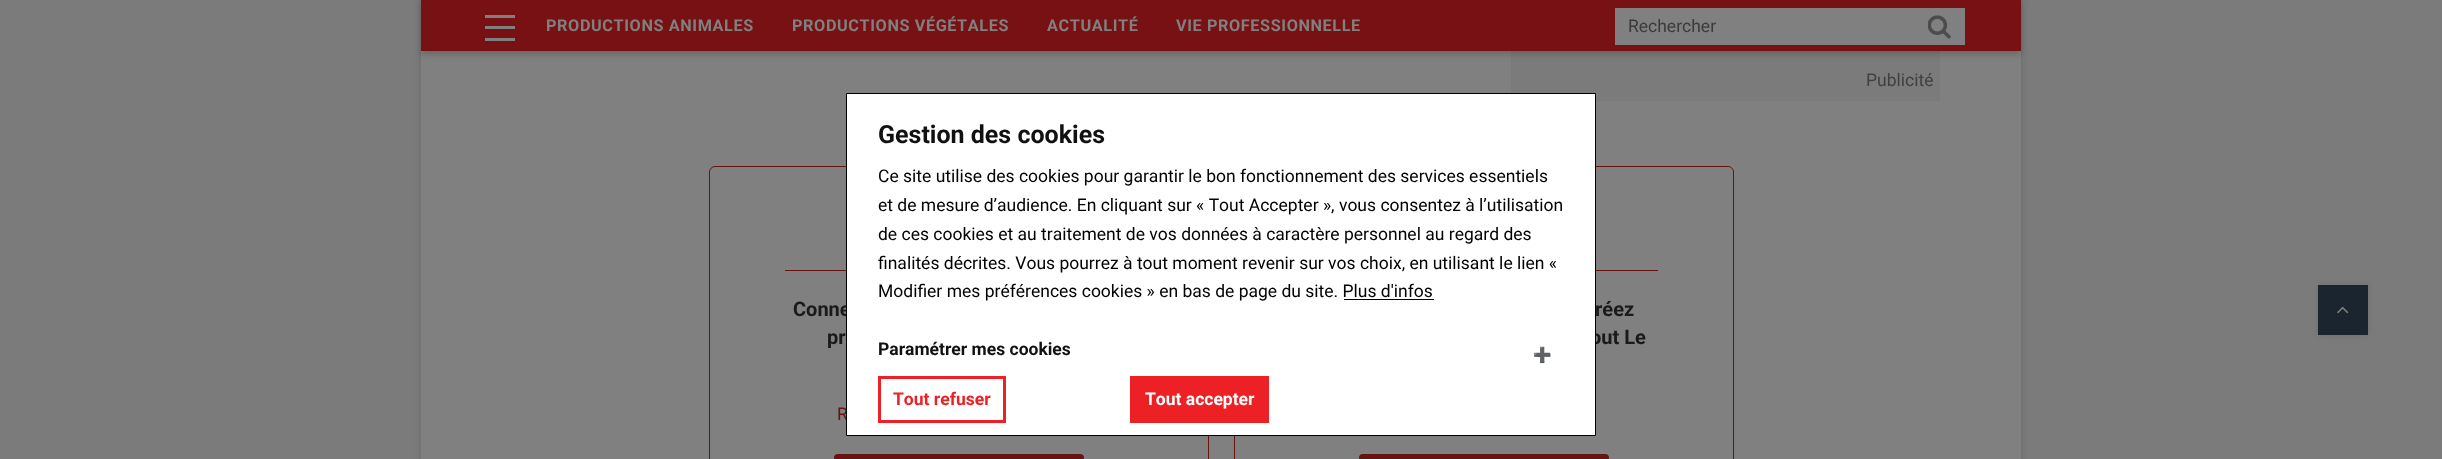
<!DOCTYPE html>
<meta charset="utf-8">
<style>body { margin: 0 } canvas { display: block }</style>
<canvas id="canvas" width="2442" height="459"></canvas>
<img id="img1" src="img_01.png" hidden>
<img id="img2" src="img_02.png" hidden>
<script>
window.onload = function () {
	const canvas = document.getElementById("canvas");
	const ctx = canvas.getContext("2d");
	ctx.miterLimit = 4;
	ctx.fontKerning = "none";
	function txt(s, x, y) {
		ctx.fillText(s, x, y);
	}
	function fill(x, y, w, h) {
		ctx.fillRect(x, y, w, h);
	}
	function round(x, y, w, h, r) {
		ctx.beginPath();
		ctx.roundRect(x, y, w, h, r);
		ctx.fill();
	}
	function img(id, x, y, w, h) {
		ctx.drawImage(document.getElementById(id), x, y, w, h);
	}

	ctx.fillStyle = "#7B7B7B";
	fill(0, 0, 2442, 459);
	ctx.fillStyle = "rgba(0, 0, 0, 0.15)";
	ctx.filter = "blur(3px)";
	ctx.beginPath();
	ctx.rect(421, -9, 1600, 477);
	ctx.fill();
	ctx.filter = "none";
	ctx.fillStyle = "#808080";
	fill(421, 51, 1600, 408);
	ctx.fillStyle = "#7B7B7B";
	fill(1511, 51, 429, 50);
	ctx.fillStyle = "rgba(0, 0, 0, 0.2)";
	ctx.filter = "blur(3px)";
	ctx.beginPath();
	ctx.rect(421, 3, 1600, 51);
	ctx.fill();
	ctx.filter = "none";
	ctx.fillStyle = "#771113";
	fill(421, 0, 1600, 51);
	ctx.fillStyle = "#808080";
	fill(485, 15, 30, 3);
	fill(485, 26, 30, 3);
	fill(485, 38, 30, 3);
	fill(1615, 8, 350, 37);
	img("img1", 1928, 15, 23, 24);
	ctx.beginPath();
	ctx.roundRect(709.5, 166.5, 499, 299, 5.5);
	ctx.strokeStyle = "#66140F";
	ctx.stroke();
	ctx.fillStyle = "#66140F";
	fill(785, 270, 61, 1);
	round(834, 454, 250, 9, 4);
	ctx.beginPath();
	ctx.roundRect(1234.5, 166.5, 499, 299, 5.5);
	ctx.stroke();
	fill(1596, 270, 62, 1);
	round(1359, 454, 250, 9, 4);
	ctx.fillStyle = "rgba(0, 0, 0, 0.1)";
	ctx.filter = "blur(3px)";
	ctx.beginPath();
	ctx.rect(2318, 285, 50, 50);
	ctx.fill();
	ctx.filter = "none";
	ctx.fillStyle = "#1A252F";
	fill(2318, 285, 50, 50);
	img("img2", 2337, 306, 12, 8);
	ctx.letterSpacing = "0.6px";
	ctx.font = "bold 16.25px Roboto";
	ctx.fillStyle = "#808080";
	txt("PRODUCTIONS ANIMALES", 546, 31);
	txt("PRODUCTIONS VÉGÉTALES", 792, 31);
	txt("ACTUALITÉ", 1047, 31);
	txt("VIE PROFESSIONNELLE", 1176, 31);
	ctx.letterSpacing = "0px";
	ctx.font = "17.5px Roboto";
	ctx.fillStyle = "#3B3B3B";
	txt("Rechercher", 1628, 32);
	ctx.fillStyle = "#414141";
	txt("Publicité", 1866, 86);
	ctx.font = "bold 20px Roboto";
	ctx.fillStyle = "#1A1A1A";
	txt("Conne", 793, 316);
	txt("pr", 827, 344);
	ctx.font = "17.5px Roboto";
	ctx.fillStyle = "#66140F";
	txt("R", 837, 420);
	ctx.font = "bold 20px Roboto";
	ctx.fillStyle = "#1A1A1A";
	txt("réez", 1595, 316);
	txt("out Le", 1590, 344);
	ctx.fillStyle = "#FFFFFF";
	ctx.beginPath();
	ctx.rect(846.5, 93.5, 749, 342);
	ctx.fill();
	ctx.strokeStyle = "#000000";
	ctx.stroke();
	ctx.font = "bold 25px Roboto";
	ctx.fillStyle = "#111111";
	txt("Gestion des cookies", 878, 143);
	ctx.font = "17.5px Roboto";
	ctx.fillStyle = "#000000";
	txt("Ce site utilise des cookies pour garantir le bon fonctionnement des services essentiels", 878, 182);
	txt("et de mesure d’audience. En cliquant sur « Tout Accepter », vous consentez à l’utilisation", 878, 211);
	txt("de ces cookies et au traitement de vos données à caractère personnel au regard des", 878, 240);
	txt("finalités décrites. Vous pourrez à tout moment revenir sur vos choix, en utilisant le lien «", 878, 269);
	txt("Modifier mes préférences cookies » en bas de page du site. Plus d'infos", 878, 297);
	fill(1344, 299, 90, 1);
	ctx.font = "bold 17.5px Roboto";
	ctx.fillStyle = "#111111";
	txt("Paramétrer mes cookies", 878, 355);
	ctx.font = "bold 15px Noto Color Emoji";
	txt("➕", 1533, 360);
	ctx.strokeStyle = "#ED2125";
	ctx.lineWidth = 3;
	ctx.strokeRect(879.5, 377.5, 125, 44);
	ctx.font = "bold 17.5px Roboto";
	ctx.fillStyle = "#ED2125";
	txt("Tout refuser", 893, 405);
	fill(1130, 376, 139, 47);
	ctx.fillStyle = "#FFFFFF";
	txt("Tout accepter", 1145, 405);
};
</script>
